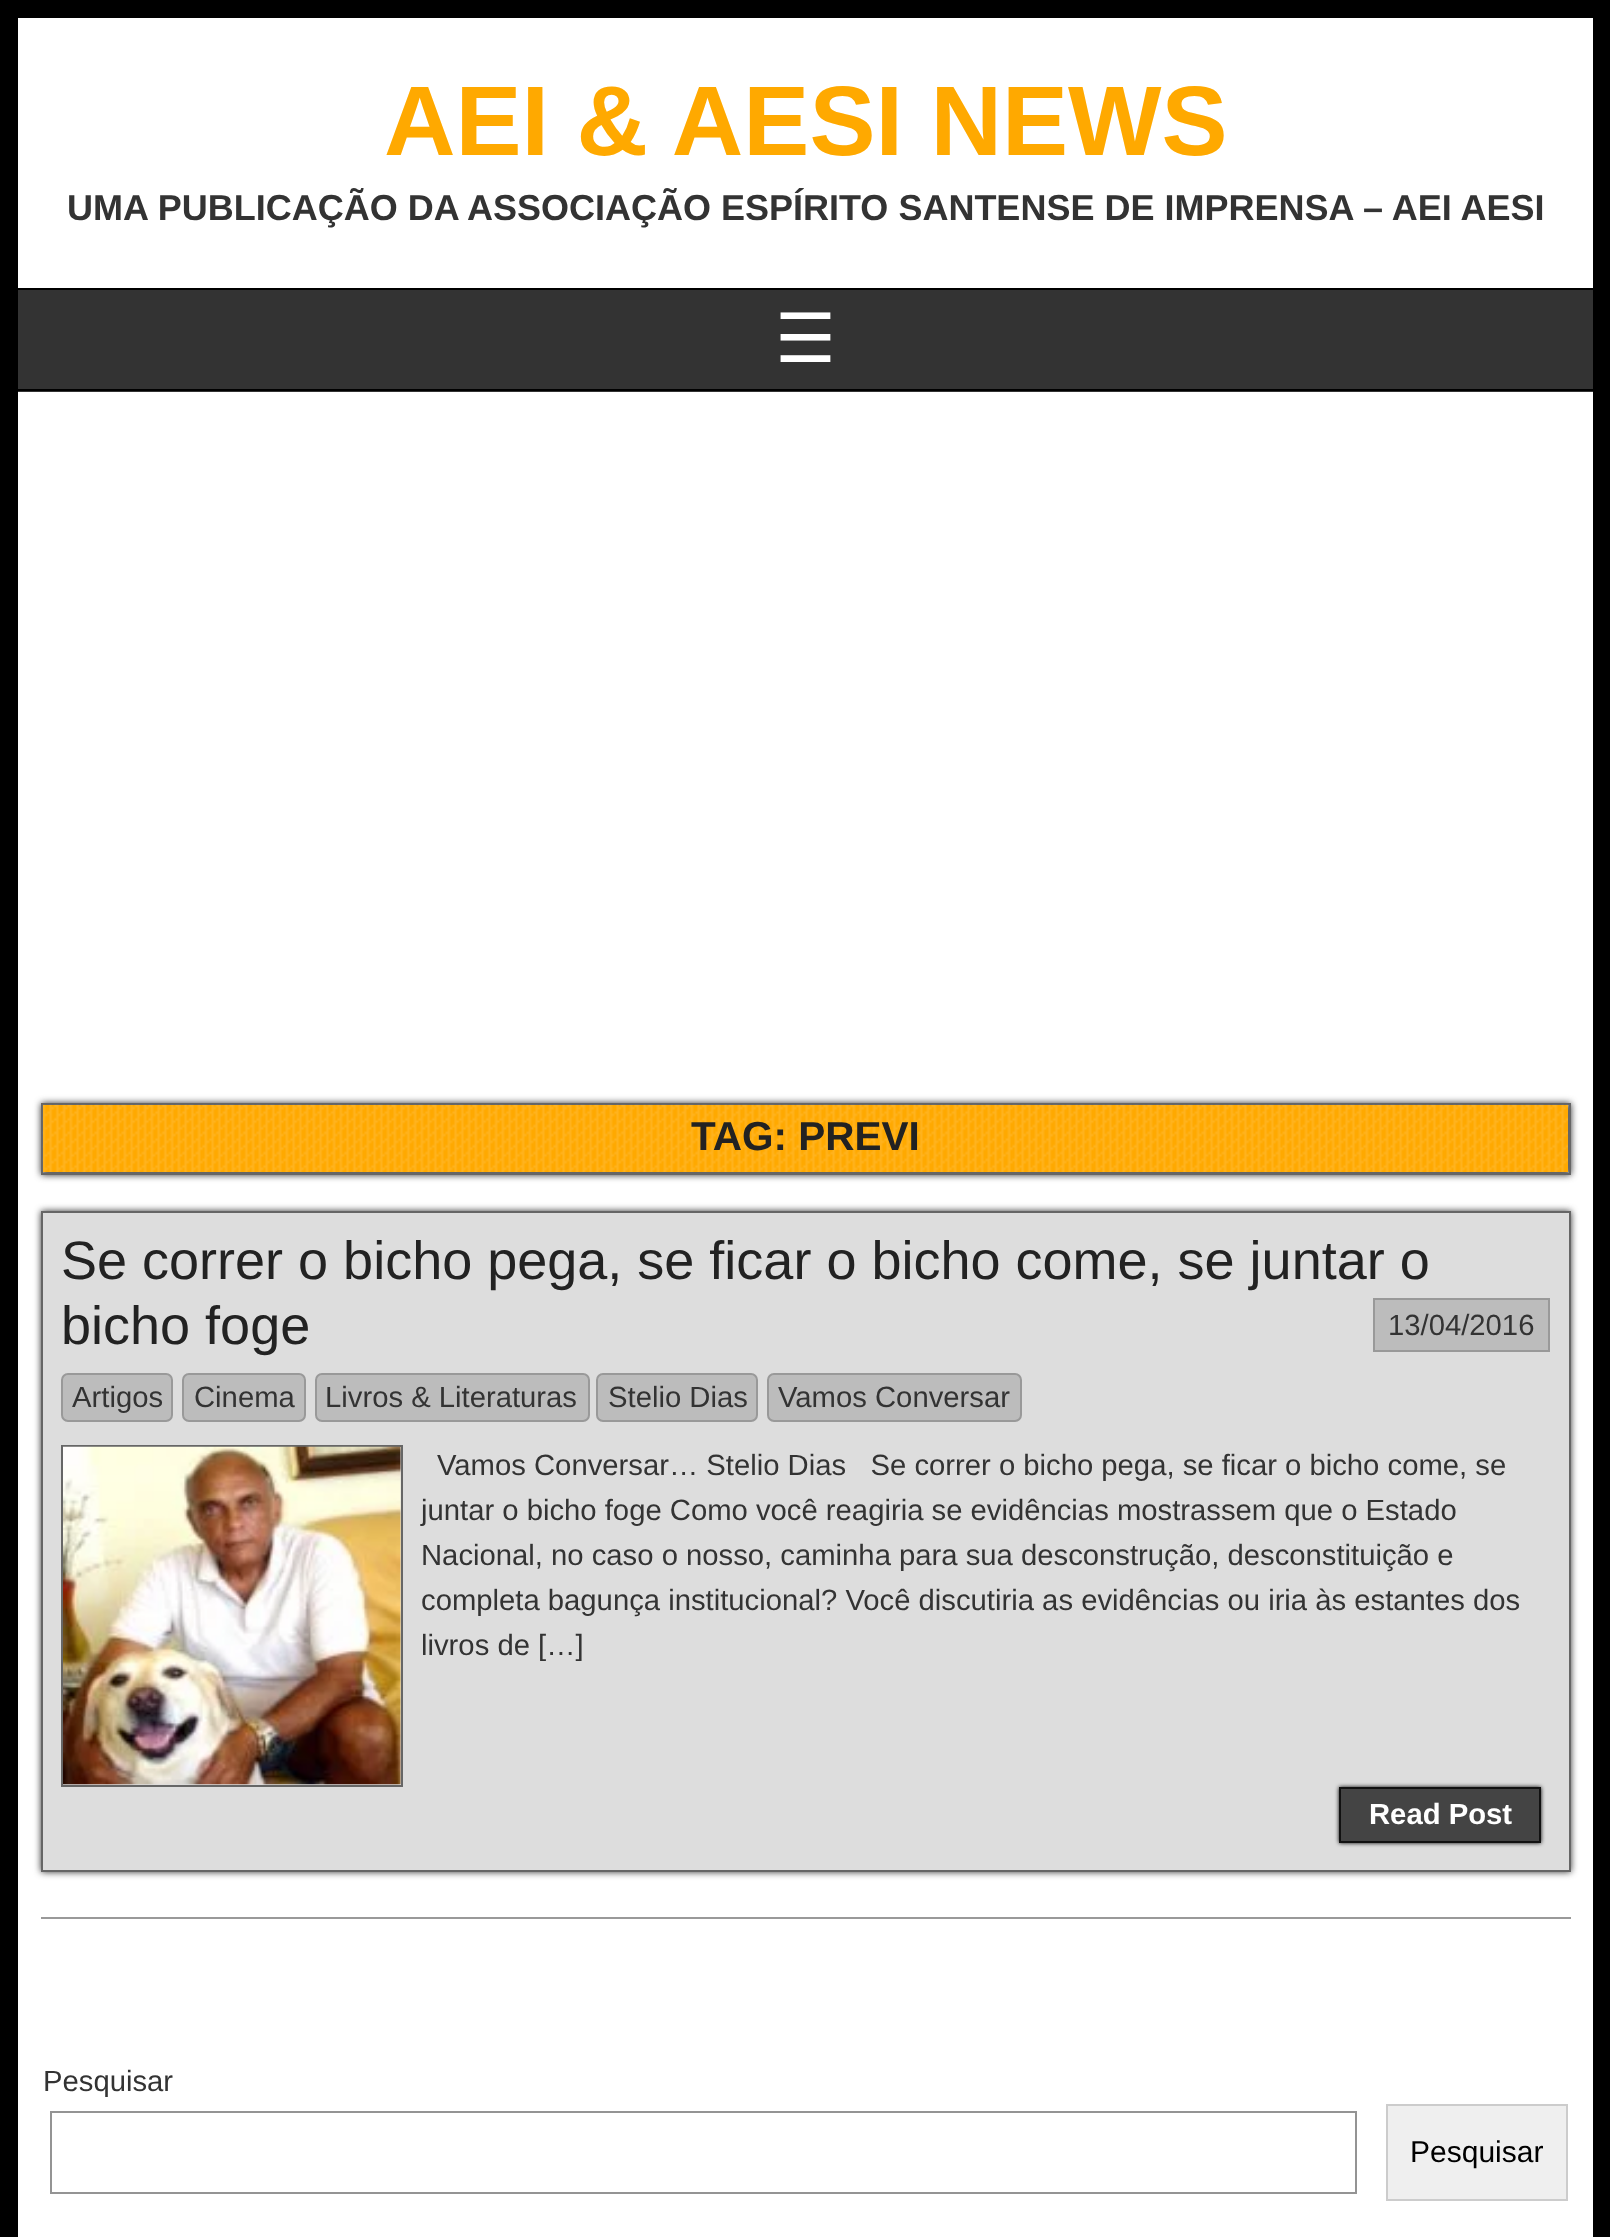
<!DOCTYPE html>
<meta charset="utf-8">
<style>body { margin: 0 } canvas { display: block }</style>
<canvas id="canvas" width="1610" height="2237"></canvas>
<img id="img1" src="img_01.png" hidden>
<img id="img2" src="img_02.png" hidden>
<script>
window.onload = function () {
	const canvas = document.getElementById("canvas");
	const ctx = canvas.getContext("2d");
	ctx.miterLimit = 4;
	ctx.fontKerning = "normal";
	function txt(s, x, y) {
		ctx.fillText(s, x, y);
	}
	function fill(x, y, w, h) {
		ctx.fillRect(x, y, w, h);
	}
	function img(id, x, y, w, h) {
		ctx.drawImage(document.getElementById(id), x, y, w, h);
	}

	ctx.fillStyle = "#FFFFFF";
	fill(0, 0, 1610, 2237);
	ctx.strokeStyle = "#000000";
	ctx.lineWidth = 18;
	ctx.strokeRect(9, 9, 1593, 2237);
	ctx.fillStyle = "#333333";
	fill(18, 290, 1575, 102);
	ctx.fillStyle = "#000000";
	fill(18, 288, 1575, 2);
	fill(18, 389, 1575, 2);
	ctx.fillStyle = "#333333";
	ctx.filter = "blur(3.5px)";
	ctx.beginPath();
	ctx.rect(41, 1103, 1530, 72);
	ctx.fill();
	ctx.filter = "none";
	ctx.strokeStyle = "#666666";
	ctx.lineWidth = 2;
	ctx.strokeRect(42, 1104, 1528, 70);
	ctx.fillStyle = "#FFA900";
	fill(43, 1105, 1525, 67);
	img("img1", 42, 1104, 1526, 68);
	ctx.fillStyle = "#333333";
	ctx.filter = "blur(3.5px)";
	ctx.beginPath();
	ctx.rect(41, 1211, 1530, 661);
	ctx.fill();
	ctx.filter = "none";
	ctx.fillStyle = "#DDDDDD";
	ctx.beginPath();
	ctx.rect(42, 1212, 1528, 659);
	ctx.fill();
	ctx.stroke();
	ctx.fillStyle = "#BCBCBC";
	ctx.beginPath();
	ctx.rect(1374, 1299, 175, 52);
	ctx.fill();
	ctx.strokeStyle = "#999999";
	ctx.stroke();
	ctx.beginPath();
	ctx.roundRect(62, 1374, 110, 47, 6);
	ctx.fill();
	ctx.stroke();
	ctx.beginPath();
	ctx.roundRect(183, 1374, 122, 47, 6);
	ctx.fill();
	ctx.stroke();
	ctx.beginPath();
	ctx.roundRect(316, 1374, 273, 47, 6);
	ctx.fill();
	ctx.stroke();
	ctx.beginPath();
	ctx.roundRect(597, 1374, 160, 47, 6);
	ctx.fill();
	ctx.stroke();
	ctx.beginPath();
	ctx.roundRect(768, 1374, 253, 47, 6);
	ctx.fill();
	ctx.stroke();
	ctx.strokeStyle = "#666666";
	ctx.strokeRect(62, 1446, 340, 340);
	img("img2", 63, 1446, 338, 339);
	ctx.fillStyle = "#000000";
	ctx.filter = "blur(2px)";
	ctx.beginPath();
	ctx.rect(1339, 1787, 202, 56);
	ctx.fill();
	ctx.filter = "none";
	ctx.fillStyle = "#444444";
	ctx.beginPath();
	ctx.rect(1340, 1788, 200, 54);
	ctx.fill();
	ctx.strokeStyle = "#111111";
	ctx.stroke();
	ctx.fillStyle = "#999999";
	fill(41, 1917, 1530, 2);
	ctx.strokeStyle = "#949494";
	ctx.strokeRect(51, 2112, 1305, 81);
	ctx.fillStyle = "#EFEFEF";
	ctx.beginPath();
	ctx.rect(1387, 2105, 180, 95);
	ctx.fill();
	ctx.strokeStyle = "#CCCCCC";
	ctx.stroke();
	ctx.font = "bold 99px Liberation Sans";
	ctx.fillStyle = "#FFA900";
	txt("AEI & AESI NEWS", 384, 155);
	ctx.font = "bold 36px Liberation Sans";
	ctx.fillStyle = "#333333";
	txt("UMA PUBLICAÇÃO DA ASSOCIAÇÃO ESPÍRITO SANTENSE DE IMPRENSA – AEI AESI", 67, 220);
	ctx.font = "68px DejaVu Sans";
	ctx.fillStyle = "#FFFFFF";
	txt("☰", 775, 362);
	ctx.font = "bold 40.5px Liberation Sans";
	ctx.fillStyle = "#222222";
	txt("TAG: PREVI", 691, 1150);
	ctx.font = "54px Liberation Sans";
	txt("Se correr o bicho pega, se ficar o bicho come, se juntar o", 61, 1279);
	txt("bicho foge", 61, 1344);
	ctx.font = "29.25px Liberation Sans";
	ctx.fillStyle = "#333333";
	txt("13/04/2016", 1388, 1335);
	txt("Artigos", 72, 1407);
	txt("Cinema", 194, 1407);
	txt("Livros & Literaturas", 325, 1407);
	txt("Stelio Dias", 608, 1407);
	txt("Vamos Conversar", 778, 1407);
	txt("Vamos Conversar… Stelio Dias   Se correr o bicho pega, se ficar o bicho come, se", 437, 1475);
	txt("juntar o bicho foge Como você reagiria se evidências mostrassem que o Estado", 421, 1520);
	txt("Nacional, no caso o nosso, caminha para sua desconstrução, desconstituição e", 421, 1565);
	txt("completa bagunça institucional? Você discutiria as evidências ou iria às estantes dos", 421, 1610);
	txt("livros de […]", 421, 1655);
	ctx.font = "bold 29.25px Liberation Sans";
	ctx.fillStyle = "#FFFFFF";
	txt("Read Post", 1369, 1824);
	ctx.font = "29.25px Liberation Sans";
	ctx.fillStyle = "#333333";
	txt("Pesquisar", 43, 2091);
	ctx.font = "30px Liberation Sans";
	ctx.fillStyle = "#000000";
	txt("Pesquisar", 1410, 2162);
};
</script>
